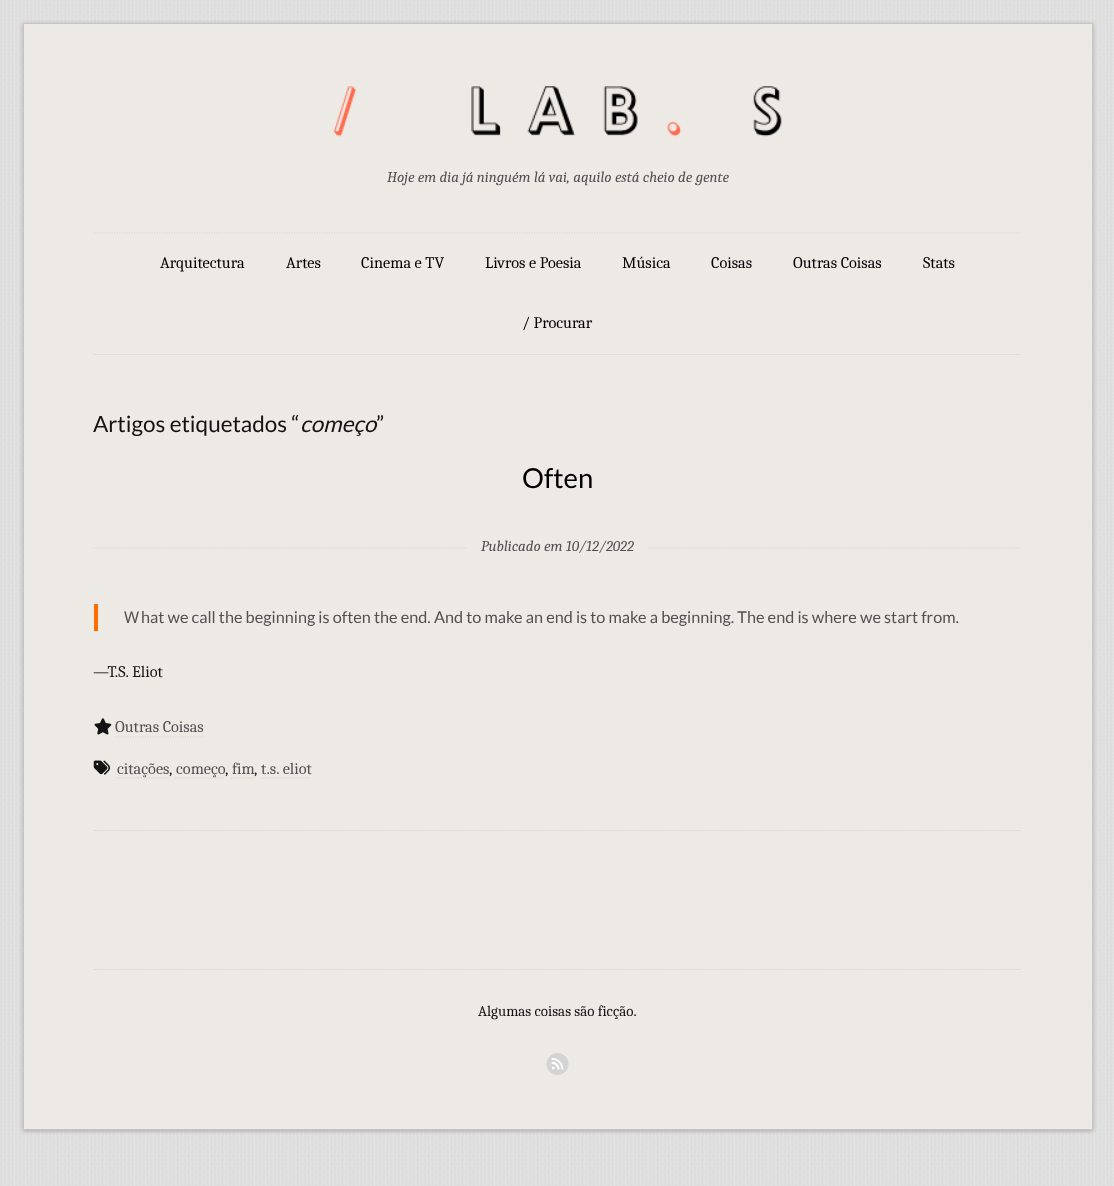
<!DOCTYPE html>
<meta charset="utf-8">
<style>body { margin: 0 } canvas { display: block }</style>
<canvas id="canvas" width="1114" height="1186"></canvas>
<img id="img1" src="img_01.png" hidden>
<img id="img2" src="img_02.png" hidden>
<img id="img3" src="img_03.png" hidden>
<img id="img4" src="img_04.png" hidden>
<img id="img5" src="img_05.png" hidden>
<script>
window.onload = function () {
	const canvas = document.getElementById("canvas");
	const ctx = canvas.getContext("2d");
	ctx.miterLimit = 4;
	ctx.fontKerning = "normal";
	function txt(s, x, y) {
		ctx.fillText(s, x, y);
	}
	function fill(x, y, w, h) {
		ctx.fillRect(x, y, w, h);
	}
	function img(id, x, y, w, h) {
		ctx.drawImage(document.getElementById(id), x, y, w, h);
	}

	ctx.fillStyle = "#FFFFFF";
	fill(0, 0, 1114, 1186);
	img("img1", 0, 0, 1114, 1186);
	ctx.fillStyle = "rgba(100, 100, 100, 0.45)";
	ctx.filter = "blur(2px)";
	ctx.beginPath();
	ctx.rect(23, 24, 1070, 1107);
	ctx.fill();
	ctx.filter = "none";
	ctx.fillStyle = "#EDEAE5";
	ctx.beginPath();
	ctx.rect(23.5, 23.5, 1069, 1106);
	ctx.fill();
	ctx.strokeStyle = "#C6C6C6";
	ctx.stroke();
	img("img2", 333, 86, 449, 51);
	ctx.beginPath();
	ctx.moveTo(94, 233);
	ctx.lineTo(1021, 233);
	ctx.strokeStyle = "#D3D3D3";
	ctx.lineWidth = 1.2;
	ctx.setLineDash([1.25, 1.25]);
	ctx.stroke();
	ctx.beginPath();
	ctx.moveTo(94, 354.5);
	ctx.lineTo(1021, 354.5);
	ctx.stroke();
	ctx.beginPath();
	ctx.moveTo(94, 548);
	ctx.lineTo(1021, 548);
	ctx.stroke();
	fill(466, 547, 182, 2);
	ctx.fillStyle = "#FF6D01";
	fill(94, 604, 4, 27);
	img("img3", 94, 718, 18, 17);
	ctx.beginPath();
	ctx.moveTo(115, 737);
	ctx.lineTo(204, 737);
	ctx.stroke();
	img("img4", 93, 760, 17, 15);
	ctx.beginPath();
	ctx.moveTo(116, 778);
	ctx.lineTo(169, 778);
	ctx.stroke();
	ctx.beginPath();
	ctx.moveTo(175, 778);
	ctx.lineTo(225, 778);
	ctx.stroke();
	ctx.beginPath();
	ctx.moveTo(231, 778);
	ctx.lineTo(255, 778);
	ctx.stroke();
	ctx.beginPath();
	ctx.moveTo(261, 778);
	ctx.lineTo(311, 778);
	ctx.stroke();
	ctx.beginPath();
	ctx.moveTo(94, 830.5);
	ctx.lineTo(1021, 830.5);
	ctx.stroke();
	ctx.beginPath();
	ctx.moveTo(94, 969.5);
	ctx.lineTo(1021, 969.5);
	ctx.stroke();
	img("img5", 546, 1053, 23, 22);
	ctx.font = "italic 15px Caladea";
	ctx.fillStyle = "#515151";
	txt("Hoje em dia já ninguém lá vai, aquilo está cheio de gente", 387, 182);
	ctx.font = "16.25px Caladea";
	ctx.fillStyle = "#000000";
	txt("Arquitectura", 160, 268);
	txt("Artes", 286, 268);
	txt("Cinema e TV", 361, 268);
	txt("Livros e Poesia", 485, 268);
	txt("Música", 622, 268);
	txt("Coisas", 711, 268);
	txt("Outras Coisas", 793, 268);
	txt("Stats", 923, 268);
	txt("/ Procurar", 522, 328);
	ctx.font = "22.5px Lato";
	ctx.fillStyle = "#131313";
	txt("Artigos etiquetados “", 93, 432);
	txt("”", 376, 432);
	ctx.font = "italic 22.5px Lato";
	txt("começo", 300, 432);
	ctx.font = "27.5px Lato";
	ctx.fillStyle = "#000000";
	txt("Often", 522, 488);
	ctx.font = "italic 15px Caladea";
	ctx.fillStyle = "#515151";
	txt("Publicado em 10/12/2022", 481, 551);
	ctx.font = "16.25px Noto Sans";
	txt("W", 124, 623);
	ctx.font = "16.25px Lato";
	txt("hat we call the beginning is often the end. And to make an end is to make a beginning. The end is where we start from.", 141, 623);
	ctx.font = "16.25px Caladea";
	ctx.fillStyle = "#131313";
	txt("—T.S. Eliot", 93, 677);
	ctx.fillStyle = "#515151";
	txt("Outras Coisas", 115, 732);
	txt("citações", 117, 774);
	ctx.fillStyle = "#131313";
	txt(",", 169, 774);
	ctx.fillStyle = "#515151";
	txt("começo", 176, 774);
	ctx.fillStyle = "#131313";
	txt(",", 225, 774);
	ctx.fillStyle = "#515151";
	txt("fim", 232, 774);
	ctx.fillStyle = "#131313";
	txt(",", 254, 774);
	ctx.fillStyle = "#515151";
	txt("t.s. eliot", 261, 774);
	ctx.font = "15px Caladea";
	ctx.fillStyle = "#131313";
	txt("Algumas coisas são ficção.", 478, 1016);
};
</script>
